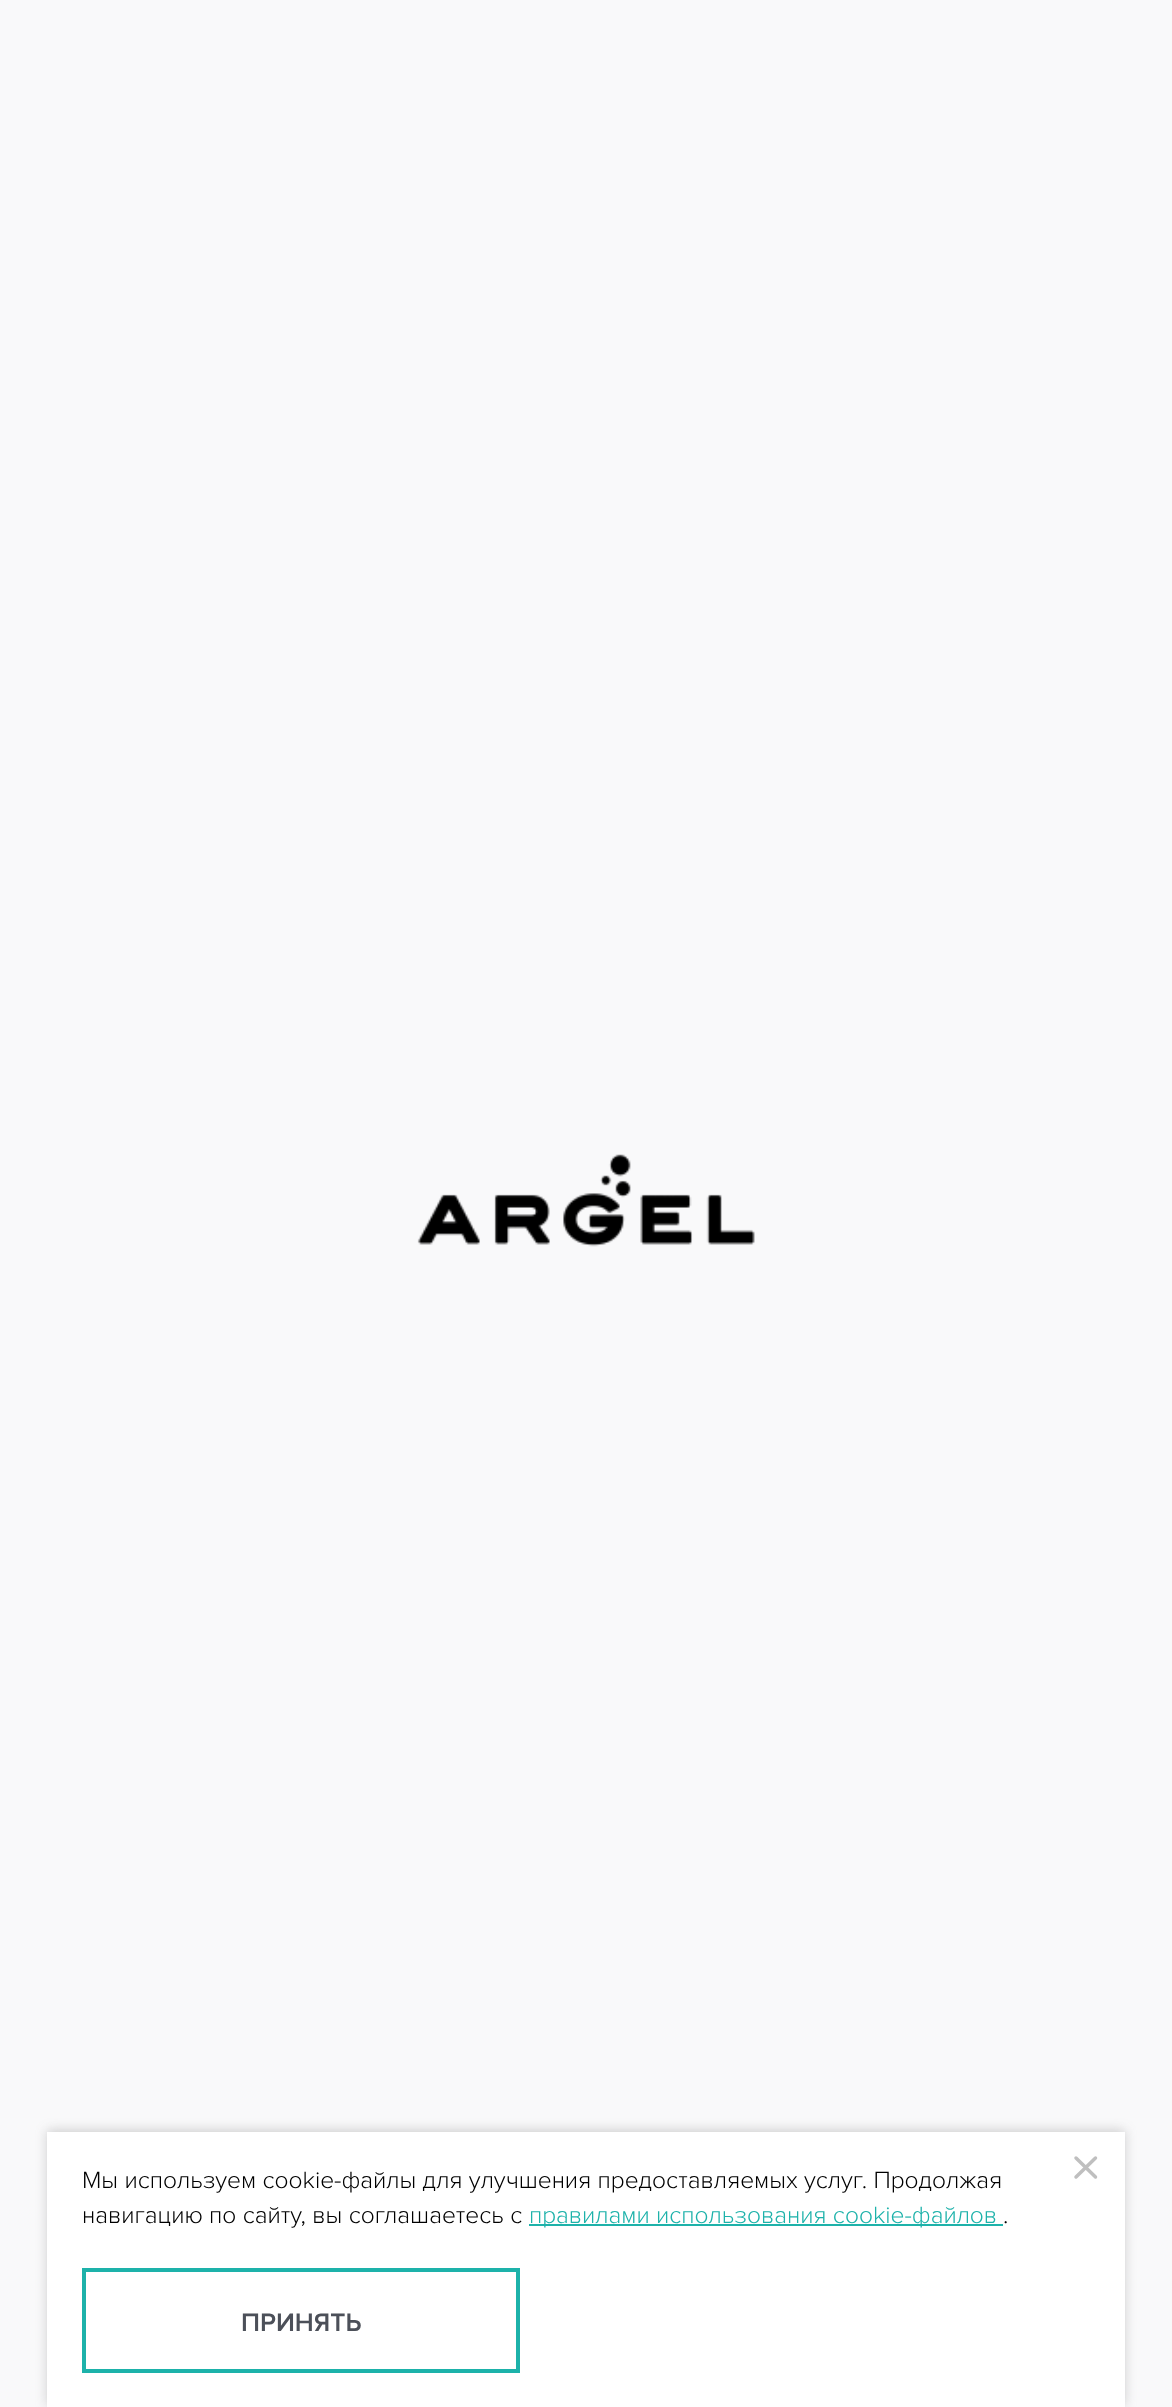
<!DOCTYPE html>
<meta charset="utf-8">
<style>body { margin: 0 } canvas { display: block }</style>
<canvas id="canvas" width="1172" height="2407"></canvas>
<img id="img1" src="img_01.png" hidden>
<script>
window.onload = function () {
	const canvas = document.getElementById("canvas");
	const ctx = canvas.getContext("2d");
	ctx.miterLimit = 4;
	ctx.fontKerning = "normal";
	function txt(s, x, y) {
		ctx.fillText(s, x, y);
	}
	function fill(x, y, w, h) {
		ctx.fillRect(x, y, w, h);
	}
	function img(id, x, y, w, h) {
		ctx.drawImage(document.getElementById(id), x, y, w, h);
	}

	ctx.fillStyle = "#F9F9FA";
	fill(0, 0, 1172, 2407);
	img("img1", 417, 1154, 338, 93);
	ctx.fillStyle = "rgba(80, 80, 80, 0.25)";
	ctx.filter = "blur(6px)";
	ctx.beginPath();
	ctx.rect(47, 2130, 1078, 276);
	ctx.fill();
	ctx.filter = "none";
	ctx.fillStyle = "#FFFFFF";
	fill(47, 2132, 1078, 275);
	ctx.fillStyle = "#1DB2AA";
	fill(529, 2224, 474, 2);
	ctx.beginPath();
	ctx.moveTo(1095.5, 2158);
	ctx.lineTo(1076, 2177);
	ctx.moveTo(1076, 2158);
	ctx.lineTo(1095.5, 2177);
	ctx.strokeStyle = "#BFBFBF";
	ctx.lineWidth = 3.5;
	ctx.lineCap = "round";
	ctx.stroke();
	ctx.strokeStyle = "#1DB2AA";
	ctx.lineWidth = 4;
	ctx.strokeRect(84, 2270, 434, 101);
	ctx.font = "300 24.5px Proxima Nova";
	ctx.fillStyle = "#000000";
	txt("Мы используем cookie-файлы для улучшения предоставляемых услуг. Продолжая", 82, 2188);
	txt("навигацию по сайту, вы соглашаетесь с", 82, 2223);
	ctx.fillStyle = "#1DB2AA";
	txt("правилами использования cookie-файлов", 529, 2223);
	ctx.fillStyle = "#000000";
	txt(".", 1003, 2223);
	ctx.font = "600 26.25px Proxima Nova";
	ctx.fillStyle = "#4C5059";
	txt("ПРИНЯТЬ", 241, 2331);
};
</script>
